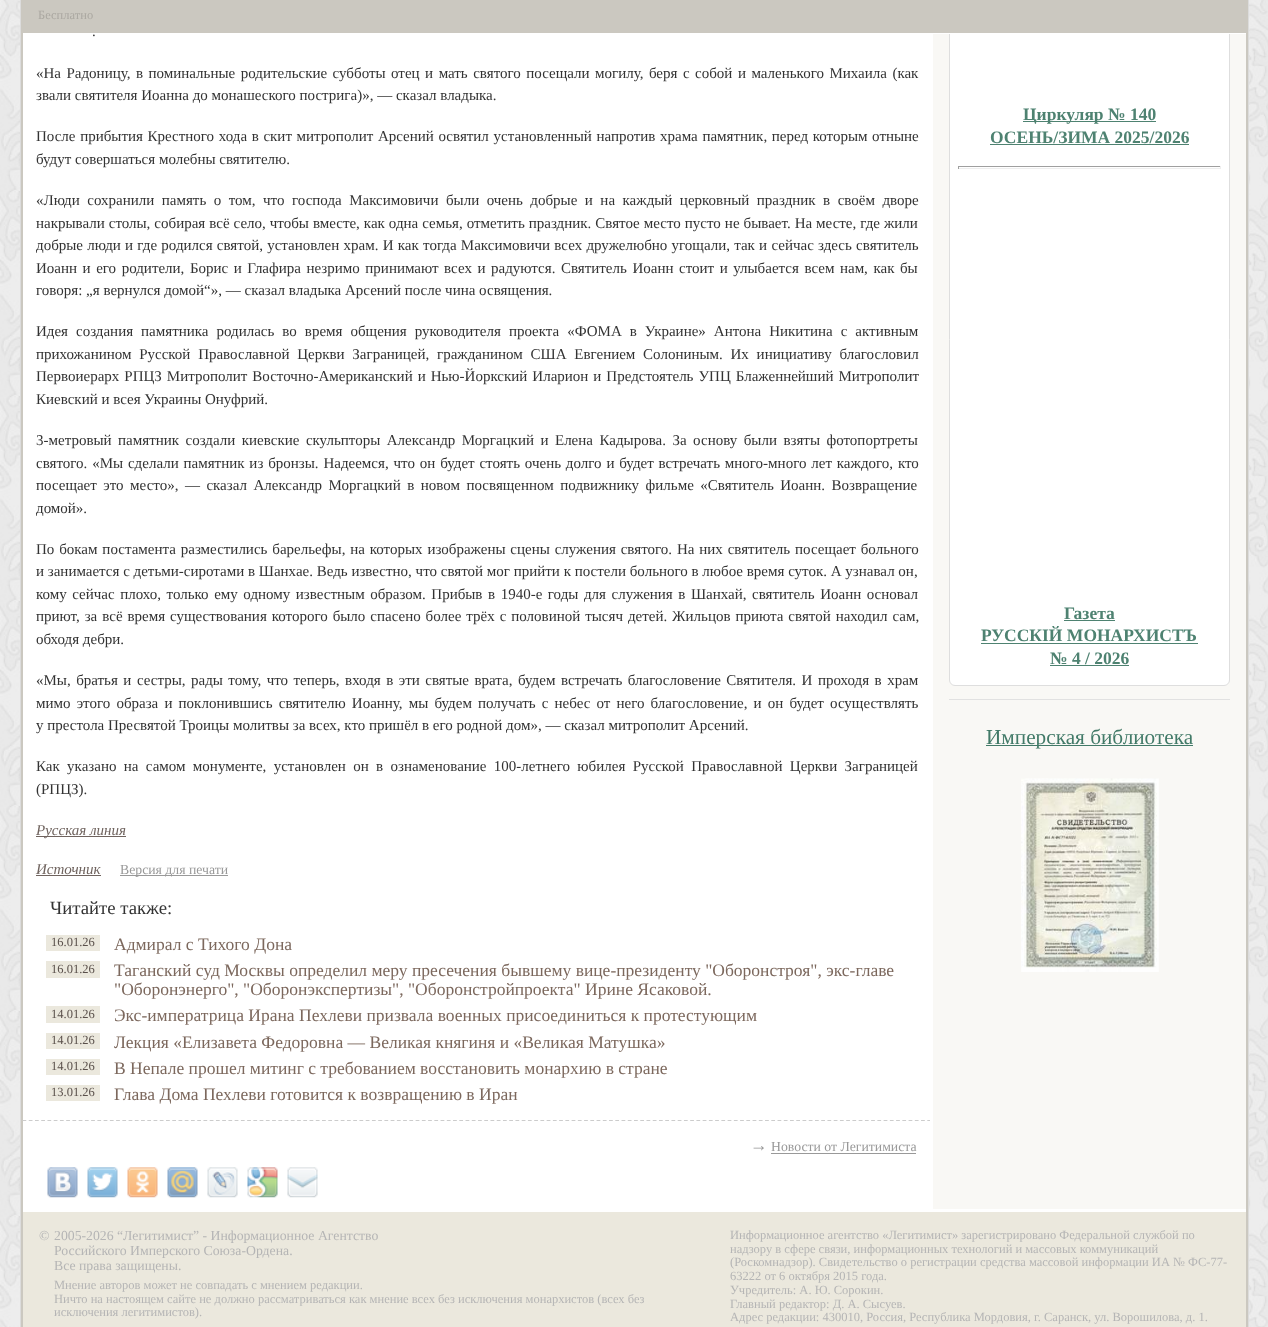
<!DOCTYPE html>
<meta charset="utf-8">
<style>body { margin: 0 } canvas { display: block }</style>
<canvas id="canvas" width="1268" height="1327"></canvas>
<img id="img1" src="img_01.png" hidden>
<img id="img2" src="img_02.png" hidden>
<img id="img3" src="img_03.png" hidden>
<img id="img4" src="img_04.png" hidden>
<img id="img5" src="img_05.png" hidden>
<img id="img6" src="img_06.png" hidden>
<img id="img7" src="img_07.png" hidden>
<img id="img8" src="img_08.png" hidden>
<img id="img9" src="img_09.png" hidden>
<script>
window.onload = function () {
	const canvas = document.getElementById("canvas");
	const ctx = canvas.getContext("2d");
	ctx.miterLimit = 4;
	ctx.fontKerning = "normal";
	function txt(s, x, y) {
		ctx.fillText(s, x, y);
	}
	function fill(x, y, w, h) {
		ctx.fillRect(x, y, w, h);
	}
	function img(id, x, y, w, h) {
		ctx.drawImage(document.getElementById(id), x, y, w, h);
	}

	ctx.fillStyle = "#FFFFFF";
	fill(0, 0, 1268, 1327);
	img("img1", 0, 0, 1268, 1327);
	ctx.fillStyle = "#DCDCDC";
	fill(1248, 0, 1, 1327);
	fill(20, 0, 1, 1327);
	ctx.fillStyle = "#CBC8C0";
	fill(21, 0, 1227, 1327);
	ctx.fillStyle = "#F9F8F5";
	fill(933, 34, 313, 1175);
	ctx.fillStyle = "#FFFFFF";
	ctx.beginPath();
	ctx.roundRect(949.5, -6.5, 280, 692, 5.5);
	ctx.fill();
	ctx.strokeStyle = "#DEDEDE";
	ctx.stroke();
	ctx.fillStyle = "#CBC8C0";
	fill(949, 0, 281, 33);
	ctx.fillStyle = "#FFFFFF";
	fill(23, 33, 1223, 1);
	fill(23, 34, 910, 1175);
	ctx.fillStyle = "#6F635E";
	fill(36, 836, 90, 1);
	fill(36, 875, 65, 1);
	ctx.fillStyle = "#999999";
	fill(120, 875, 108, 1);
	ctx.fillStyle = "#EBE8DD";
	fill(46, 935, 54, 16);
	fill(46, 961, 54, 17);
	fill(46, 1006, 54, 17);
	fill(46, 1033, 54, 16);
	fill(46, 1059, 54, 16);
	fill(46, 1085, 54, 16);
	ctx.beginPath();
	ctx.moveTo(22.5, 1120.5);
	ctx.lineTo(930, 1120.5);
	ctx.strokeStyle = "#CCCCCC";
	ctx.lineWidth = 1.2;
	ctx.setLineDash([3.75, 2.49]);
	ctx.stroke();
	ctx.fillStyle = "#999999";
	fill(771, 1153, 145, 1);
	img("img2", 47, 1167, 31, 31);
	img("img3", 87, 1167, 31, 31);
	img("img4", 127, 1167, 31, 31);
	img("img5", 167, 1167, 31, 31);
	img("img6", 207, 1167, 31, 31);
	img("img7", 247, 1167, 31, 31);
	img("img8", 287, 1167, 31, 31);
	ctx.fillStyle = "#E1E1E1";
	fill(949, 699, 281, 1);
	ctx.fillStyle = "#4E8271";
	fill(1023, 121, 133, 1);
	fill(990, 144, 199, 1);
	ctx.fillStyle = "#9F9F9F";
	fill(958, 166, 263, 1);
	ctx.fillStyle = "#EEEEEE";
	fill(1220, 166, 1, 3);
	fill(958, 168, 263, 1);
	ctx.fillStyle = "#9F9F9F";
	fill(958, 166, 1, 3);
	ctx.fillStyle = "#4E8271";
	fill(1064, 620, 51, 1);
	fill(981, 643, 217, 1);
	fill(1050, 665, 79, 1);
	ctx.fillStyle = "#427A68";
	fill(986, 745, 207, 1);
	img("img9", 1021, 778, 138, 194);
	ctx.fillStyle = "#EBE8DD";
	fill(23, 1212, 1223, 115);
	ctx.fillStyle = "#FFFFFF";
	fill(23, 1209, 1223, 3);
	ctx.font = "12.5px Liberation Serif";
	ctx.fillStyle = "#ABA8A1";
	txt("Бесплатно", 38, 19);
	ctx.font = "15px Liberation Serif";
	ctx.fillStyle = "#333333";
	txt(".", 92, 36);
	ctx.wordSpacing = "1.75px";
	txt("«На Радоницу, в поминальные родительские субботы отец и мать святого посещали могилу, беря с собой и маленького Михаила (как", 36, 78);
	ctx.wordSpacing = "0px";
	txt("звали святителя Иоанна до монашеского пострига)», — сказал владыка.", 36, 100);
	ctx.wordSpacing = "0.9px";
	txt("После прибытия Крестного хода в скит митрополит Арсений освятил установленный напротив храма памятник, перед которым отныне", 36, 141);
	ctx.wordSpacing = "0px";
	txt("будут совершаться молебны святителю.", 36, 164);
	ctx.wordSpacing = "3.75px";
	txt("«Люди сохранили память о том, что господа Максимовичи были очень добрые и на каждый церковный праздник в своём дворе", 36, 205);
	ctx.wordSpacing = "0.25px";
	txt("накрывали столы, собирая всё село, чтобы вместе, как одна семья, отметить праздник. Святое место пусто не бывает. На месте, где жили", 36, 228);
	ctx.wordSpacing = "0.5px";
	txt("добрые люди и где родился святой, установлен храм. И как тогда Максимовичи всех дружелюбно угощали, так и сейчас здесь святитель", 36, 250);
	ctx.wordSpacing = "1.8px";
	txt("Иоанн и его родители, Борис и Глафира незримо принимают всех и радуются. Святитель Иоанн стоит и улыбается всем нам, как бы", 36, 273);
	ctx.wordSpacing = "0px";
	txt("говоря: „я вернулся домой“», — сказал владыка Арсений после чина освящения.", 36, 295);
	ctx.wordSpacing = "4.25px";
	txt("Идея создания памятника родилась во время общения руководителя проекта «ФОМА в Украине» Антона Никитина с активным", 36, 336);
	ctx.wordSpacing = "4px";
	txt("прихожанином Русской Православной Церкви Заграницей, гражданином США Евгением Солониным. Их инициативу благословил", 36, 359);
	ctx.wordSpacing = "1.25px";
	txt("Первоиерарх РПЦЗ Митрополит Восточно-Американский и Нью-Йоркский Иларион и Предстоятель УПЦ Блаженнейший Митрополит", 36, 381);
	ctx.wordSpacing = "0px";
	txt("Киевский и всея Украины Онуфрий.", 36, 404);
	ctx.wordSpacing = "2.75px";
	txt("3-метровый памятник создали киевские скульпторы Александр Моргацкий и Елена Кадырова. За основу были взяты фотопортреты", 36, 445);
	ctx.wordSpacing = "1.1px";
	txt("святого. «Мы сделали памятник из бронзы. Надеемся, что он будет стоять очень долго и будет встречать много-много лет каждого, кто", 36, 468);
	ctx.wordSpacing = "2.75px";
	txt("посещает это место», — сказал Александр Моргацкий в новом посвященном подвижнику фильме «Святитель Иоанн. Возвращение", 36, 490);
	ctx.wordSpacing = "0px";
	txt("домой».", 36, 513);
	ctx.wordSpacing = "1.1px";
	txt("По бокам постамента разместились барельефы, на которых изображены сцены служения святого. На них святитель посещает больного", 36, 554);
	ctx.wordSpacing = "0px";
	txt("и занимается с детьми-сиротами в Шанхае. Ведь известно, что святой мог прийти к постели больного в любое время суток. А узнавал он,", 36, 576);
	ctx.wordSpacing = "1.8px";
	txt("кому сейчас плохо, только ему одному известным образом. Прибыв в 1940-е годы для служения в Шанхай, святитель Иоанн основал", 36, 599);
	ctx.wordSpacing = "1.2px";
	txt("приют, за всё время существования которого было спасено более трёх с половиной тысяч детей. Жильцов приюта святой находил сам,", 36, 621);
	ctx.wordSpacing = "0px";
	txt("обходя дебри.", 36, 644);
	ctx.wordSpacing = "1.75px";
	txt("«Мы, братья и сестры, рады тому, что теперь, входя в эти святые врата, будем встречать благословение Святителя. И проходя в храм", 36, 685);
	ctx.wordSpacing = "2.4px";
	txt("мимо этого образа и поклонившись святителю Иоанну, мы будем получать с небес от него благословение, и он будет осуществлять", 36, 708);
	ctx.wordSpacing = "0px";
	txt("у престола Пресвятой Троицы молитвы за всех, кто пришёл в его родной дом», — сказал митрополит Арсений.", 36, 730);
	ctx.wordSpacing = "3.6px";
	txt("Как указано на самом монументе, установлен он в ознаменование 100-летнего юбилея Русской Православной Церкви Заграницей", 36, 771);
	ctx.wordSpacing = "0px";
	txt("(РПЦЗ).", 36, 794);
	ctx.font = "italic 15px Liberation Serif";
	ctx.fillStyle = "#6F635E";
	txt("Русская линия", 36, 835);
	txt("Источник", 36, 874);
	ctx.font = "13.75px Liberation Serif";
	ctx.fillStyle = "#999999";
	txt("Версия для печати", 120, 874);
	ctx.font = "18.75px Liberation Serif";
	ctx.fillStyle = "#333333";
	txt("Читайте также:", 50, 914);
	ctx.font = "12.5px Liberation Serif";
	ctx.fillStyle = "#5A504B";
	txt("16.01.26", 51, 946);
	ctx.font = "17.5px Liberation Serif";
	ctx.fillStyle = "#7C685D";
	txt("Адмирал с Тихого Дона", 114, 950);
	ctx.font = "12.5px Liberation Serif";
	ctx.fillStyle = "#5A504B";
	txt("16.01.26", 51, 973);
	ctx.font = "17.5px Liberation Serif";
	ctx.fillStyle = "#7C685D";
	txt("Таганский суд Москвы определил меру пресечения бывшему вице-президенту \"Оборонстроя\", экс-главе", 114, 976);
	txt("\"Оборонэнерго\", \"Оборонэкспертизы\", \"Оборонстройпроекта\" Ирине Ясаковой.", 114, 995);
	ctx.font = "12.5px Liberation Serif";
	ctx.fillStyle = "#5A504B";
	txt("14.01.26", 51, 1018);
	ctx.font = "17.5px Liberation Serif";
	ctx.fillStyle = "#7C685D";
	txt("Экс-императрица Ирана Пехлеви призвала военных присоединиться к протестующим", 114, 1021);
	ctx.font = "12.5px Liberation Serif";
	ctx.fillStyle = "#5A504B";
	txt("14.01.26", 51, 1044);
	ctx.font = "17.5px Liberation Serif";
	ctx.fillStyle = "#7C685D";
	txt("Лекция «Елизавета Федоровна — Великая княгиня и «Великая Матушка»", 114, 1048);
	ctx.font = "12.5px Liberation Serif";
	ctx.fillStyle = "#5A504B";
	txt("14.01.26", 51, 1070);
	ctx.font = "17.5px Liberation Serif";
	ctx.fillStyle = "#7C685D";
	txt("В Непале прошел митинг с требованием восстановить монархию в стране", 114, 1074);
	ctx.font = "12.5px Liberation Serif";
	ctx.fillStyle = "#5A504B";
	txt("13.01.26", 51, 1096);
	ctx.font = "17.5px Liberation Serif";
	ctx.fillStyle = "#7C685D";
	txt("Глава Дома Пехлеви готовится к возвращению в Иран", 114, 1100);
	ctx.fillStyle = "#999999";
	txt("→", 750, 1151);
	ctx.font = "13.75px Liberation Serif";
	txt("Новости от Легитимиста", 771, 1151);
	ctx.font = "bold 17.5px Liberation Serif";
	ctx.fillStyle = "#4E8271";
	txt("Циркуляр № 140", 1023, 120);
	txt("ОСЕНЬ/ЗИМА 2025/2026", 990, 143);
	txt("Газета", 1064, 619);
	txt("РУССКIЙ МОНАРХИСТЪ", 981, 641);
	txt("№ 4 / 2026", 1050, 664);
	ctx.font = "21.25px Liberation Serif";
	ctx.fillStyle = "#427A68";
	txt("Имперская библиотека", 986, 744);
	ctx.font = "13.75px Liberation Serif";
	ctx.fillStyle = "#B5B5B5";
	txt("©", 39, 1240);
	txt("2005-2026 “Легитимист” - Информационное Агентство", 54, 1240);
	txt("Российского Имперского Союза-Ордена.", 54, 1255);
	txt("Все права защищены.", 54, 1270);
	ctx.font = "12.5px Liberation Serif";
	txt("Мнение авторов может не совпадать с мнением редакции.", 54, 1289);
	txt("Ничто на настоящем сайте не должно рассматриваться как мнение всех без исключения монархистов (всех без", 54, 1303);
	txt("исключения легитимистов).", 54, 1316);
	txt("Информационное агентство «Легитимист» зарегистрировано Федеральной службой по", 730, 1239);
	txt("надзору в сфере связи, информационных технологий и массовых коммуникаций", 730, 1253);
	txt("(Роскомнадзор). Свидетельство о регистрации средства массовой информации ИА № ФС-77-", 730, 1266);
	txt("63222 от 6 октября 2015 года.", 730, 1280);
	txt("Учредитель: А. Ю. Сорокин.", 730, 1294);
	txt("Главный редактор: Д. А. Сысуев.", 730, 1308);
	txt("Адрес редакции: 430010, Россия, Республика Мордовия, г. Саранск, ул. Ворошилова, д. 1.", 730, 1321);
};
</script>
